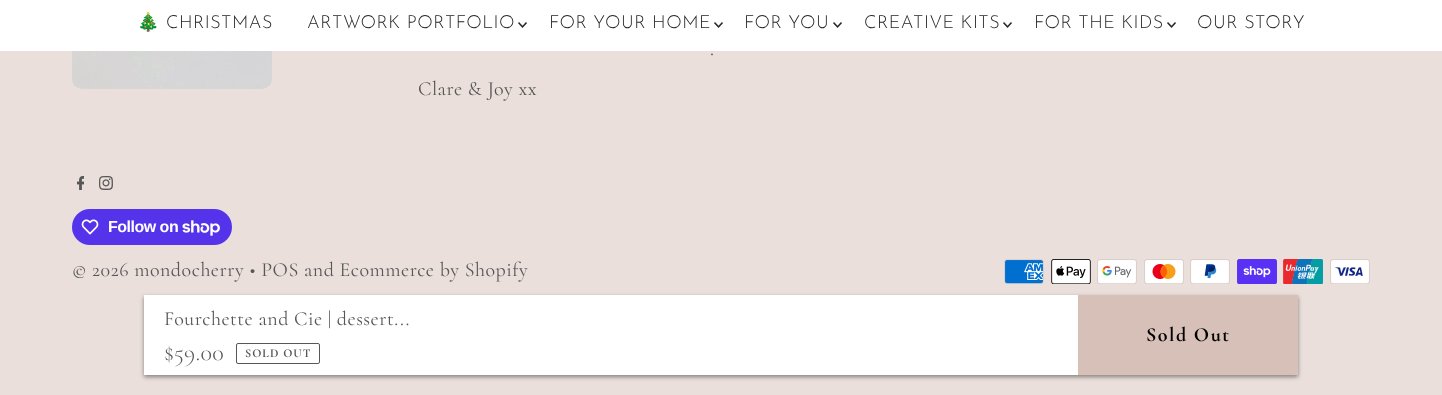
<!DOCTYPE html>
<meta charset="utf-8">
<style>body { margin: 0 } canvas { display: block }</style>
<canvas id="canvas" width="1442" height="395"></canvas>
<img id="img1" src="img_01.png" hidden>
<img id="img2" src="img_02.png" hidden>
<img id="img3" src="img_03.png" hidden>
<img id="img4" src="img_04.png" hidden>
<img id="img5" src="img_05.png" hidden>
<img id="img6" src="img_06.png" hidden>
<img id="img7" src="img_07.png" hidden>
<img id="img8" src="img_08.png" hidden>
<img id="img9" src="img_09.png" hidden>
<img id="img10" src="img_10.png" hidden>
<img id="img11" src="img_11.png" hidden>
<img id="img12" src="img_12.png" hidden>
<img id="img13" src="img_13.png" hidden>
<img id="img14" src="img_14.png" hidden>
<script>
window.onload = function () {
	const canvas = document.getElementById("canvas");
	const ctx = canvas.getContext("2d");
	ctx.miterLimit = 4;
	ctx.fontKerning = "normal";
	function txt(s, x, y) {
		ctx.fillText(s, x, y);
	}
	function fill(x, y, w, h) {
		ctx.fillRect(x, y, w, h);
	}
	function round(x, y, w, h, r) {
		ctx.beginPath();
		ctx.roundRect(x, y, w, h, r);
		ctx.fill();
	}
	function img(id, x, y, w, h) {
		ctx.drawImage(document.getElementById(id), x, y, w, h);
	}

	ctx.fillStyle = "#EADFDB";
	fill(0, 0, 1442, 395);
	ctx.fillStyle = "#FFFFFF";
	fill(0, 0, 1442, 51);
	img("img1", 518, 22, 9, 6);
	img("img1", 714, 22, 9, 6);
	img("img1", 833, 22, 9, 6);
	img("img1", 1003, 22, 9, 6);
	img("img1", 1167, 22, 9, 6);
	ctx.fillStyle = "rgba(34, 34, 34, 0.5)";
	ctx.filter = "blur(2px)";
	ctx.beginPath();
	ctx.rect(144, 297, 1154, 80);
	ctx.fill();
	ctx.filter = "none";
	ctx.fillStyle = "#FFFFFF";
	fill(144, 295, 934, 80);
	ctx.beginPath();
	ctx.roundRect(236.5, 343.5, 83, 20, 1.5);
	ctx.strokeStyle = "#575757";
	ctx.stroke();
	ctx.fillStyle = "#D7C0B7";
	fill(1078, 295, 220, 80);
	img("img2", 72, 51, 200, 38);
	img("img3", 77, 176, 7, 14);
	img("img4", 99, 176, 14, 14);
	ctx.fillStyle = "#5433EB";
	round(72, 209, 160, 36, 18);
	img("img5", 81, 219, 18, 16);
	img("img6", 182, 220, 38, 16);
	img("img7", 1004, 259, 40, 25);
	img("img8", 1051, 259, 40, 25);
	img("img9", 1097, 259, 40, 25);
	img("img10", 1144, 259, 40, 25);
	img("img11", 1190, 259, 40, 25);
	img("img12", 1237, 259, 40, 25);
	img("img13", 1283, 259, 40, 25);
	img("img14", 1330, 259, 40, 25);
	ctx.letterSpacing = "0.5px";
	ctx.font = "18px Noto Color Emoji";
	ctx.fillStyle = "#252525";
	txt("🎄", 137, 28);
	ctx.font = "300 18px Josefin Sans";
	txt("CHRISTMAS", 166, 28);
	txt("ARTWORK PORTFOLIO", 307, 28);
	txt("FOR YOUR HOME", 549, 28);
	txt("FOR YOU", 744, 28);
	txt("CREATIVE KITS", 864, 28);
	txt("FOR THE KIDS", 1034, 28);
	txt("OUR STORY", 1197, 28);
	ctx.font = "20px Cormorant";
	ctx.fillStyle = "#575757";
	txt("Fourchette and Cie | dessert...", 164, 325);
	ctx.letterSpacing = "0.25px";
	ctx.font = "300 24px Cormorant";
	txt("$59.00", 164, 360);
	ctx.letterSpacing = "1px";
	ctx.font = "bold 12px Cormorant";
	txt("SOLD OUT", 245, 357);
	ctx.letterSpacing = "1.5px";
	ctx.font = "bold 20px Cormorant";
	ctx.fillStyle = "#000000";
	txt("Sold Out", 1146, 341);
	ctx.letterSpacing = "0.5px";
	ctx.font = "20px Cormorant";
	ctx.fillStyle = "#575757";
	txt(".", 710, 55);
	txt("Clare & Joy xx", 418, 95);
	ctx.letterSpacing = "-0.5px";
	ctx.font = "bold 16px Liberation Sans";
	ctx.fillStyle = "#FFFFFF";
	txt("Follow on", 108, 232);
	ctx.letterSpacing = "0.5px";
	ctx.font = "20px Cormorant";
	ctx.fillStyle = "#575757";
	txt("© 2026 mondocherry • POS and Ecommerce by Shopify", 72, 276);
};
</script>
